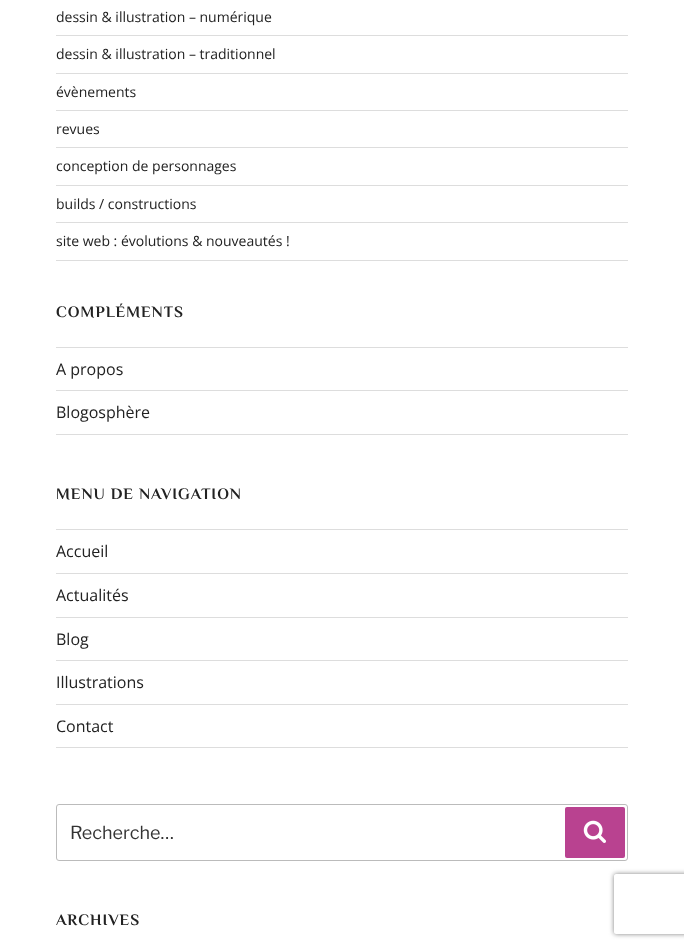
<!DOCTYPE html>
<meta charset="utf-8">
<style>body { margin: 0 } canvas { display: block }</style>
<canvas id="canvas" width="684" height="948"></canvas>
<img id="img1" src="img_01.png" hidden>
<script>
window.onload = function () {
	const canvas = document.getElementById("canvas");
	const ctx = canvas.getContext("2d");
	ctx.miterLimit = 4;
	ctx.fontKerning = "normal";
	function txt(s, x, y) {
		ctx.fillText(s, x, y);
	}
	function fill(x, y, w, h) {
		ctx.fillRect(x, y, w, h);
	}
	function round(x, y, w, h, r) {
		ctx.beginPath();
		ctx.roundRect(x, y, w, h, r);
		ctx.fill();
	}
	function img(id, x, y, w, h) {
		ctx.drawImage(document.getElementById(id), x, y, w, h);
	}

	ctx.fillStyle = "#FFFFFF";
	fill(0, 0, 684, 948);
	ctx.fillStyle = "#DDDDDD";
	fill(56, 35, 572, 1);
	fill(56, 73, 572, 1);
	fill(56, 110, 572, 1);
	fill(56, 147, 572, 1);
	fill(56, 185, 572, 1);
	fill(56, 222, 572, 1);
	fill(56, 260, 572, 1);
	fill(56, 347, 572, 1);
	fill(56, 390, 572, 1);
	fill(56, 434, 572, 1);
	fill(56, 529, 572, 1);
	fill(56, 573, 572, 1);
	fill(56, 617, 572, 1);
	fill(56, 660, 572, 1);
	fill(56, 704, 572, 1);
	fill(56, 747, 572, 1);
	ctx.beginPath();
	ctx.roundRect(56.5, 804.5, 571, 56, 2.5);
	ctx.strokeStyle = "#BBBBBB";
	ctx.stroke();
	ctx.fillStyle = "#B94290";
	round(565, 807, 60, 51, 2);
	img("img1", 583, 820, 23, 23);
	ctx.save();
	ctx.beginPath();
	ctx.moveTo(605, 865);
	ctx.lineTo(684, 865);
	ctx.lineTo(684, 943);
	ctx.lineTo(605, 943);
	ctx.closePath();
	ctx.moveTo(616, 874);
	ctx.lineTo(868, 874);
	ctx.bezierCurveTo(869, 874, 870, 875, 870, 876);
	ctx.lineTo(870, 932);
	ctx.bezierCurveTo(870, 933, 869, 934, 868, 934);
	ctx.lineTo(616, 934);
	ctx.bezierCurveTo(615, 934, 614, 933, 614, 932);
	ctx.lineTo(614, 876);
	ctx.bezierCurveTo(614, 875, 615, 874, 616, 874);
	ctx.closePath();
	ctx.clip("evenodd");
	ctx.fillStyle = "#808080";
	ctx.filter = "blur(2.5px)";
	ctx.beginPath();
	ctx.roundRect(614, 874, 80, 60, 2);
	ctx.fill();
	ctx.filter = "none";
	ctx.restore();
	ctx.font = "14px Open Sans";
	ctx.fillStyle = "#222222";
	txt("dessin & illustration – numérique", 56, 22);
	txt("dessin & illustration – traditionnel", 56, 59);
	txt("évènements", 56, 97);
	txt("revues", 56, 134);
	txt("conception de personnages", 56, 171);
	txt("builds / constructions", 56, 209);
	txt("site web : évolutions & nouveautés !", 56, 246);
	ctx.letterSpacing = "1px";
	ctx.font = "bold 16px Philosopher";
	txt("COMPLÉMENTS", 56, 317);
	ctx.letterSpacing = "0px";
	ctx.font = "16px Open Sans";
	txt("A propos", 56, 375);
	txt("Blogosphère", 56, 418);
	ctx.letterSpacing = "1px";
	ctx.font = "bold 16px Philosopher";
	txt("MENU DE NAVIGATION", 56, 499);
	ctx.letterSpacing = "0px";
	ctx.font = "16px Open Sans";
	txt("Accueil", 56, 557);
	txt("Actualités", 56, 601);
	txt("Blog", 56, 645);
	txt("Illustrations", 56, 688);
	txt("Contact", 56, 732);
	ctx.font = "100 18px Libre Franklin";
	ctx.fillStyle = "#333333";
	txt("Recherche…", 70, 839);
	ctx.letterSpacing = "1px";
	ctx.font = "bold 16px Philosopher";
	ctx.fillStyle = "#222222";
	txt("ARCHIVES", 56, 925);
};
</script>
